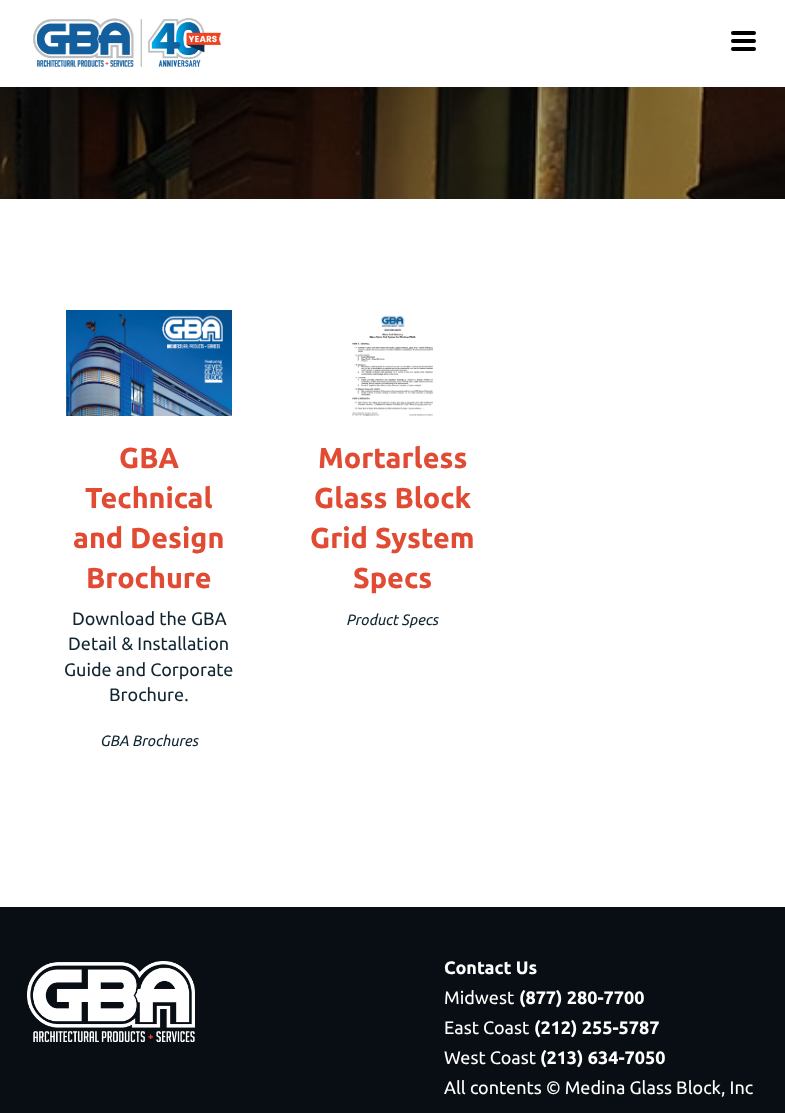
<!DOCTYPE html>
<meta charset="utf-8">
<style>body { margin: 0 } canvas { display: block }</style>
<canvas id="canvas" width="785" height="1113"></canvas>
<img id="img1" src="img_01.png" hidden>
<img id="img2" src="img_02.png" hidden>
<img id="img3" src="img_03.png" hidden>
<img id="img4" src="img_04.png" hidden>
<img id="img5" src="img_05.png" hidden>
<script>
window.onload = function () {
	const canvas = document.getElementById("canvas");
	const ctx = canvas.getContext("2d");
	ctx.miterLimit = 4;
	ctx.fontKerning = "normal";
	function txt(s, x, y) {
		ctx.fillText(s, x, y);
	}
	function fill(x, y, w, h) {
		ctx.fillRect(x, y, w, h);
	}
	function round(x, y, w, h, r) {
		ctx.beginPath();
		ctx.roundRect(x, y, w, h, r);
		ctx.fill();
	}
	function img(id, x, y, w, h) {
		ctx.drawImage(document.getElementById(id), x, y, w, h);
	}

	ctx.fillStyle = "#FFFFFF";
	fill(0, 0, 785, 1113);
	img("img1", 33, 18, 189, 49);
	ctx.fillStyle = "#000000";
	round(731, 31, 25, 4, 2);
	round(731, 39, 25, 4, 2);
	round(731, 47, 25, 4, 2);
	img("img2", 0, 87, 785, 112);
	img("img3", 66, 310, 166, 106);
	img("img4", 352, 315, 81, 101);
	ctx.fillStyle = "#080E13";
	fill(0, 907, 785, 206);
	img("img5", 27, 961, 168, 81);
	ctx.font = "bold 28.75px Ubuntu";
	ctx.fillStyle = "#E14B33";
	txt("GBA", 119, 468);
	txt("Technical", 85, 508);
	txt("and Design", 73, 548);
	txt("Brochure", 86, 588);
	ctx.font = "18px Ubuntu";
	ctx.fillStyle = "#122632";
	txt("Download the GBA", 72, 625);
	txt("Detail & Installation", 68, 650);
	txt("Guide and Corporate", 64, 676);
	txt("Brochure.", 109, 701);
	ctx.font = "italic 15px Ubuntu";
	txt("GBA Brochures", 100, 746);
	ctx.font = "bold 28.75px Ubuntu";
	ctx.fillStyle = "#E14B33";
	txt("Mortarless", 318, 468);
	txt("Glass Block", 314, 508);
	txt("Grid System", 310, 548);
	txt("Specs", 353, 588);
	ctx.font = "italic 15px Ubuntu";
	ctx.fillStyle = "#122632";
	txt("Product Specs", 346, 625);
	ctx.font = "bold 18px Ubuntu";
	ctx.fillStyle = "#FFFFFF";
	txt("Contact Us", 444, 974);
	ctx.font = "18px Ubuntu";
	txt("Midwest", 444, 1004);
	ctx.font = "bold 18px Ubuntu";
	txt("(877) 280-7700", 519, 1004);
	ctx.font = "18px Ubuntu";
	txt("East Coast", 444, 1034);
	ctx.font = "bold 18px Ubuntu";
	txt("(212) 255-5787", 534, 1034);
	ctx.font = "18px Ubuntu";
	txt("West Coast", 444, 1064);
	ctx.font = "bold 18px Ubuntu";
	txt("(213) 634-7050", 540, 1064);
	ctx.font = "18px Ubuntu";
	txt("All contents © Medina Glass Block, Inc", 444, 1094);
};
</script>
